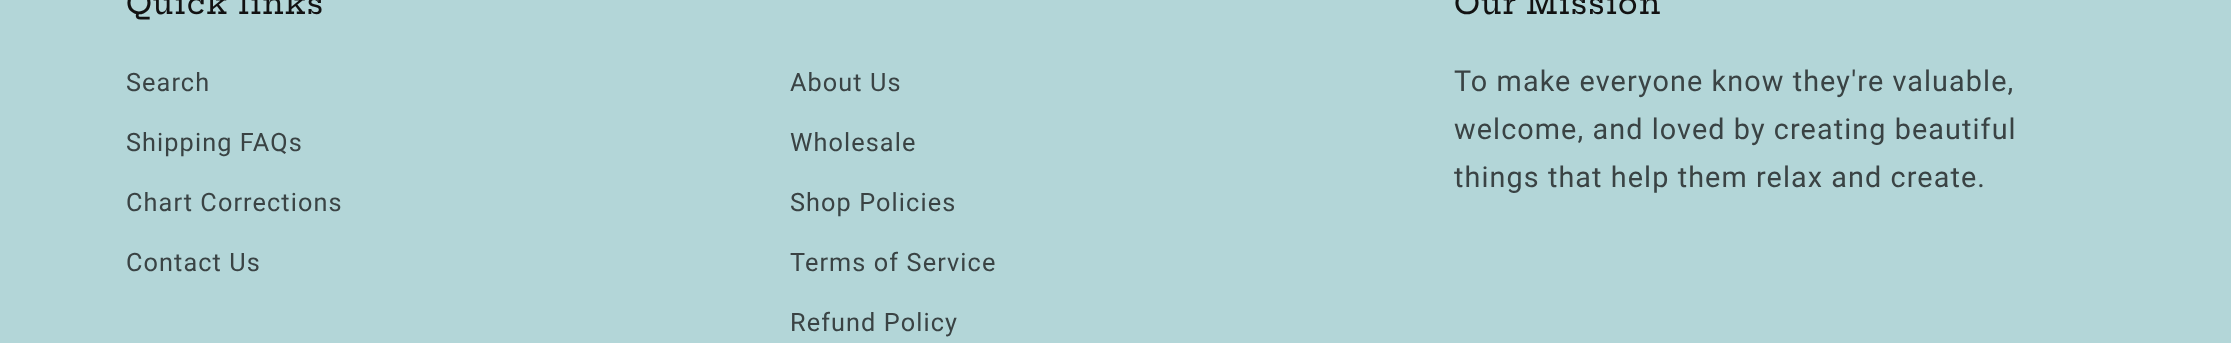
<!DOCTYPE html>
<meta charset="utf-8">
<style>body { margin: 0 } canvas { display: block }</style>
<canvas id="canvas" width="2231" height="343"></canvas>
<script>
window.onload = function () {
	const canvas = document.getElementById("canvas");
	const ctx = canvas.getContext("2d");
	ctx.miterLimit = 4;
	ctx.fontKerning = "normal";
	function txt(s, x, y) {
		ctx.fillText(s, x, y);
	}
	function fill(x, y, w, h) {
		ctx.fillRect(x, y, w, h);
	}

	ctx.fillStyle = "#B3D6D8";
	fill(0, 0, 2231, 343);
	ctx.letterSpacing = "1px";
	ctx.font = "500 29.75px Hepta Slab";
	ctx.fillStyle = "#121212";
	txt("Quick links", 126, 14);
	ctx.letterSpacing = "1.1px";
	ctx.font = "25.25px Roboto";
	ctx.fillStyle = "#3A4344";
	txt("Search", 126, 91);
	txt("Shipping FAQs", 126, 151);
	txt("Chart Corrections", 126, 211);
	txt("Contact Us", 126, 271);
	txt("About Us", 790, 91);
	txt("Wholesale", 790, 151);
	txt("Shop Policies", 790, 211);
	txt("Terms of Service", 790, 271);
	txt("Refund Policy", 790, 331);
	ctx.letterSpacing = "1px";
	ctx.font = "500 29.75px Hepta Slab";
	ctx.fillStyle = "#121212";
	txt("Our Mission", 1454, 14);
	ctx.letterSpacing = "1.1px";
	ctx.font = "28.75px Roboto";
	ctx.fillStyle = "#3A4344";
	txt("To make everyone know they're valuable,", 1454, 91);
	txt("welcome, and loved by creating beautiful", 1454, 139);
	txt("things that help them relax and create.", 1454, 187);
};
</script>
